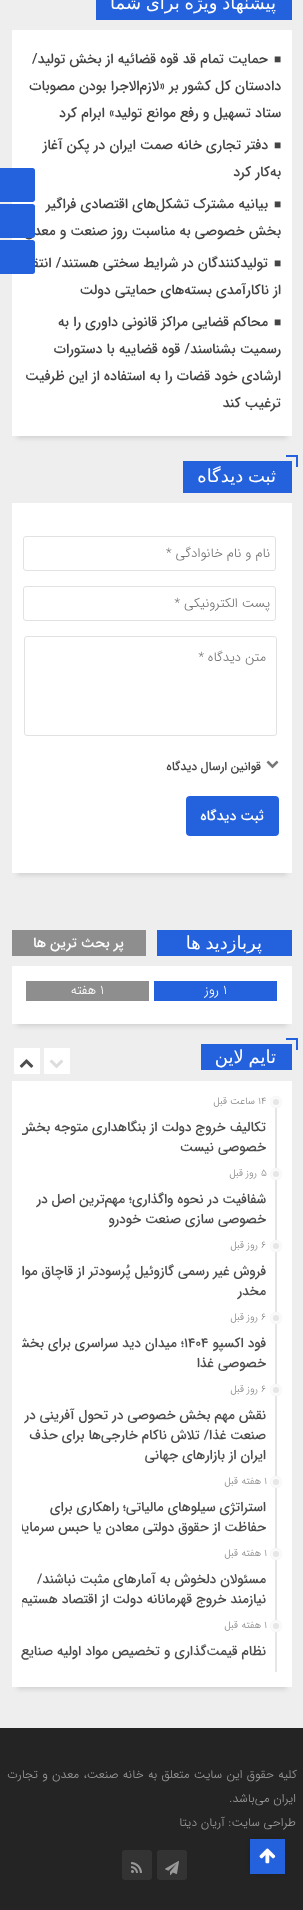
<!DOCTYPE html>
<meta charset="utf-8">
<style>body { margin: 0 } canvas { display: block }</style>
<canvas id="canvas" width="303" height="1910"></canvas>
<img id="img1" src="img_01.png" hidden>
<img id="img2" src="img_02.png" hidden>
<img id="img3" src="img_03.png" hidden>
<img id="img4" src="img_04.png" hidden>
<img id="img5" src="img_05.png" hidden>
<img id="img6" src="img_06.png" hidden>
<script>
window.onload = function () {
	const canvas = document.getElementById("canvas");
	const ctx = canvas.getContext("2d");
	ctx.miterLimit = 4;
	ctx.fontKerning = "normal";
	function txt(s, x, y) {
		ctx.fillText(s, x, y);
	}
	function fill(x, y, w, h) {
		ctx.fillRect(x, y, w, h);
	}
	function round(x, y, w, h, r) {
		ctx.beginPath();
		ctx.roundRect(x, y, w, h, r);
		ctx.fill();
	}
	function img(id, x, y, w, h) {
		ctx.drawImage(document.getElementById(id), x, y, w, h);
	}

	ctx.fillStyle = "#EEEEEE";
	fill(0, 0, 303, 1910);
	ctx.fillStyle = "#2361DD";
	fill(96, 0, 196, 20);
	ctx.fillStyle = "#CFCFCF";
	ctx.filter = "blur(2.5px)";
	ctx.beginPath();
	ctx.rect(17, 42, 270, 396);
	ctx.fill();
	ctx.filter = "none";
	ctx.fillStyle = "#FFFFFF";
	fill(12, 30, 280, 406);
	ctx.fillStyle = "#2361DD";
	fill(183, 461, 109, 32);
	fill(286, 455, 12, 2);
	fill(296, 455, 2, 12);
	ctx.fillStyle = "#CFCFCF";
	ctx.filter = "blur(2.5px)";
	ctx.beginPath();
	ctx.rect(17, 515, 270, 360);
	ctx.fill();
	ctx.filter = "none";
	ctx.fillStyle = "#FFFFFF";
	fill(12, 503, 280, 370);
	ctx.beginPath();
	ctx.roundRect(23.5, 536.5, 252, 34, 2.5);
	ctx.strokeStyle = "#E2E2E2";
	ctx.stroke();
	ctx.beginPath();
	ctx.roundRect(23.5, 586.5, 252, 34, 2.5);
	ctx.stroke();
	ctx.beginPath();
	ctx.roundRect(24.5, 636.5, 252, 99, 2.5);
	ctx.stroke();
	img("img1", 266, 760, 13, 9);
	ctx.fillStyle = "#2361DD";
	round(186, 796, 93, 40, 4);
	fill(157, 930, 135, 26);
	ctx.fillStyle = "#8E8E8E";
	fill(12, 930, 134, 26);
	ctx.fillStyle = "#CFCFCF";
	ctx.filter = "blur(2.5px)";
	ctx.beginPath();
	ctx.rect(17, 978, 270, 48);
	ctx.fill();
	ctx.filter = "none";
	ctx.fillStyle = "#FFFFFF";
	fill(12, 966, 280, 58);
	ctx.fillStyle = "#2361DD";
	fill(154, 981, 123, 20);
	ctx.fillStyle = "#8E8E8E";
	fill(26, 981, 123, 20);
	ctx.fillStyle = "#2361DD";
	fill(201, 1044, 91, 26);
	fill(286, 1038, 12, 2);
	fill(296, 1038, 2, 12);
	ctx.fillStyle = "#CFCFCF";
	ctx.filter = "blur(2.5px)";
	ctx.beginPath();
	ctx.rect(17, 1093, 270, 596);
	ctx.fill();
	ctx.filter = "none";
	ctx.fillStyle = "#FFFFFF";
	fill(12, 1081, 280, 606);
	fill(44, 1048, 26, 26);
	img("img2", 49, 1059, 15, 10);
	fill(14, 1048, 26, 26);
	img("img3", 19, 1059, 15, 9);
	ctx.fillStyle = "#E6E6E6";
	fill(275, 1096, 2, 576);
	ctx.beginPath();
	ctx.arc(276, 1102, 6, 0, Math.PI * 2);
	ctx.fill();
	ctx.beginPath();
	ctx.arc(276, 1102, 4.5, 0, Math.PI * 2);
	ctx.strokeStyle = "rgba(255, 255, 255, 0.8)";
	ctx.lineWidth = 3;
	ctx.stroke();
	ctx.beginPath();
	ctx.arc(276, 1174, 6, 0, Math.PI * 2);
	ctx.fill();
	ctx.beginPath();
	ctx.arc(276, 1174, 4.5, 0, Math.PI * 2);
	ctx.stroke();
	ctx.beginPath();
	ctx.arc(276, 1246, 6, 0, Math.PI * 2);
	ctx.fill();
	ctx.beginPath();
	ctx.arc(276, 1246, 4.5, 0, Math.PI * 2);
	ctx.stroke();
	ctx.beginPath();
	ctx.arc(276, 1318, 6, 0, Math.PI * 2);
	ctx.fill();
	ctx.beginPath();
	ctx.arc(276, 1318, 4.5, 0, Math.PI * 2);
	ctx.stroke();
	ctx.beginPath();
	ctx.arc(276, 1390, 6, 0, Math.PI * 2);
	ctx.fill();
	ctx.beginPath();
	ctx.arc(276, 1390, 4.5, 0, Math.PI * 2);
	ctx.stroke();
	ctx.beginPath();
	ctx.arc(276, 1482, 6, 0, Math.PI * 2);
	ctx.fill();
	ctx.beginPath();
	ctx.arc(276, 1482, 4.5, 0, Math.PI * 2);
	ctx.stroke();
	ctx.beginPath();
	ctx.arc(276, 1554, 6, 0, Math.PI * 2);
	ctx.fill();
	ctx.beginPath();
	ctx.arc(276, 1554, 4.5, 0, Math.PI * 2);
	ctx.stroke();
	ctx.beginPath();
	ctx.arc(276, 1626, 6, 0, Math.PI * 2);
	ctx.fill();
	ctx.beginPath();
	ctx.arc(276, 1626, 4.5, 0, Math.PI * 2);
	ctx.stroke();
	ctx.fillStyle = "#2361DD";
	ctx.beginPath();
	ctx.moveTo(-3, 168);
	ctx.lineTo(32.5, 168);
	ctx.bezierCurveTo(34, 168, 35, 169, 35, 170.5);
	ctx.lineTo(35, 199.5);
	ctx.bezierCurveTo(35, 201, 34, 202, 32.5, 202);
	ctx.lineTo(-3, 202);
	ctx.closePath();
	ctx.fill();
	ctx.fillStyle = "#242424";
	fill(0, 1728, 303, 182);
	ctx.fillStyle = "#333333";
	round(157, 1850, 30, 30, 3);
	img("img4", 165, 1861, 14, 14);
	round(122, 1850, 30, 30, 3);
	img("img5", 131, 1862, 11, 11);
	ctx.fillStyle = "rgba(0, 0, 0, 0.3)";
	ctx.filter = "blur(3.5px)";
	ctx.beginPath();
	ctx.rect(253, 1842, 29, 29);
	ctx.fill();
	ctx.filter = "none";
	ctx.fillStyle = "#2361DD";
	fill(250, 1839, 35, 35);
	img("img6", 259, 1848, 17, 16);
	ctx.wordSpacing = "-1px";
	ctx.direction = "rtl";
	ctx.font = "18px DejaVu Sans";
	ctx.fillStyle = "#FFFFFF";
	txt("پیشنهاد ویژه برای شما", 276, 9);
	ctx.wordSpacing = "0px";
	ctx.direction = "ltr";
	ctx.font = "bold 12px Liberation Serif";
	ctx.fillStyle = "#444444";
	txt("■", 274, 63);
	ctx.direction = "rtl";
	ctx.font = "500 14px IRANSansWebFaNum";
	txt("حمایت تمام قد قوه قضائیه از بخش تولید/", 268, 63);
	txt("دادستان کل کشور بر «لازم‌الاجرا بودن مصوبات", 281, 90);
	txt("ستاد تسهیل و رفع موانع تولید» ابرام کرد", 281, 117);
	ctx.direction = "ltr";
	ctx.font = "bold 12px Liberation Serif";
	txt("■", 274, 149);
	ctx.direction = "rtl";
	ctx.font = "500 14px IRANSansWebFaNum";
	txt("دفتر تجاری خانه صمت ایران در پکن آغاز", 268, 149);
	txt("به‌کار کرد", 281, 176);
	ctx.direction = "ltr";
	ctx.font = "bold 12px Liberation Serif";
	txt("■", 274, 208);
	ctx.direction = "rtl";
	ctx.font = "500 14px IRANSansWebFaNum";
	txt("بیانیه مشترک تشکل‌های اقتصادی فراگیر", 268, 208);
	txt("بخش خصوصی به مناسبت روز صنعت و معدن", 281, 235);
	ctx.direction = "ltr";
	ctx.font = "bold 12px Liberation Serif";
	txt("■", 274, 267);
	ctx.direction = "rtl";
	ctx.font = "500 14px IRANSansWebFaNum";
	txt("تولیدکنندگان در شرایط سختی هستند/ انتقاد", 268, 267);
	txt("از ناکارآمدی بسته‌های حمایتی دولت", 281, 294);
	ctx.direction = "ltr";
	ctx.font = "bold 12px Liberation Serif";
	txt("■", 274, 326);
	ctx.direction = "rtl";
	ctx.font = "500 14px IRANSansWebFaNum";
	txt("محاکم قضایی مراکز قانونی داوری را به", 268, 326);
	txt("رسمیت بشناسند/ قوه قضاییه با دستورات", 281, 353);
	txt("ارشادی خود قضات را به استفاده از این ظرفیت", 281, 380);
	txt("ترغیب کند", 281, 407);
	ctx.wordSpacing = "-1px";
	ctx.font = "18px DejaVu Sans";
	ctx.fillStyle = "#FFFFFF";
	txt("ثبت دیدگاه", 276, 482);
	ctx.wordSpacing = "0px";
	ctx.font = "300 13px IRANSansWebFaNum";
	ctx.fillStyle = "#757575";
	txt("نام و نام خانوادگی *", 270, 557);
	txt("پست الکترونیکی *", 270, 607);
	txt("متن دیدگاه *", 266, 661);
	ctx.font = "500 12px IRANSansWebFaNum";
	ctx.fillStyle = "#444444";
	txt("قوانین ارسال دیدگاه", 261, 770);
	ctx.font = "500 14px IRANSansWebFaNum";
	ctx.fillStyle = "#FFFFFF";
	txt("ثبت دیدگاه", 264, 820);
	ctx.wordSpacing = "-1px";
	ctx.font = "18px DejaVu Sans";
	txt("پربازدید ها", 262, 949);
	ctx.wordSpacing = "0px";
	ctx.font = "500 14px IRANSansWebFaNum";
	txt("پر بحث ترین ها", 124, 947);
	ctx.direction = "ltr";
	ctx.font = "300 13px IRANSansWebFaNum";
	txt("1", 223, 994);
	ctx.direction = "rtl";
	txt("روز", 219, 994);
	ctx.direction = "ltr";
	txt("1", 100, 994);
	ctx.direction = "rtl";
	txt("هفته", 96, 994);
	ctx.wordSpacing = "-1px";
	ctx.font = "18px DejaVu Sans";
	txt("تایم لاین", 276, 1063);
	ctx.wordSpacing = "0px";
	ctx.direction = "ltr";
	ctx.font = "300 10px IRANSansWebFaNum";
	ctx.fillStyle = "#888888";
	txt("14", 258, 1104);
	ctx.direction = "rtl";
	txt("ساعت", 255, 1104);
	txt("قبل", 227, 1104);
	ctx.save();
	ctx.beginPath();
	ctx.rect(22, 1096, 260, 576);
	ctx.clip();
	ctx.font = "500 13.5px IRANSansWebFaNum";
	ctx.fillStyle = "#4D4D4D";
	txt("تکالیف خروج دولت از بنگاهداری متوجه بخش", 266, 1131);
	ctx.restore();
	ctx.font = "500 13.5px IRANSansWebFaNum";
	ctx.fillStyle = "#4D4D4D";
	txt("خصوصی نیست", 266, 1151);
	ctx.direction = "ltr";
	ctx.font = "300 10px IRANSansWebFaNum";
	ctx.fillStyle = "#888888";
	txt("5", 261, 1176);
	ctx.direction = "rtl";
	txt("روز", 257, 1176);
	txt("قبل", 243, 1176);
	ctx.font = "500 13.5px IRANSansWebFaNum";
	ctx.fillStyle = "#4D4D4D";
	txt("شفافیت در نحوه واگذاری؛ مهم‌ترین اصل در", 266, 1203);
	txt("خصوصی سازی صنعت خودرو", 266, 1223);
	ctx.direction = "ltr";
	ctx.font = "300 10px IRANSansWebFaNum";
	ctx.fillStyle = "#888888";
	txt("6", 261, 1248);
	ctx.direction = "rtl";
	txt("روز", 258, 1248);
	txt("قبل", 244, 1248);
	ctx.save();
	ctx.beginPath();
	ctx.rect(22, 1096, 260, 576);
	ctx.clip();
	ctx.font = "500 13.5px IRANSansWebFaNum";
	ctx.fillStyle = "#4D4D4D";
	txt("فروش غیر رسمی گازوئیل پُرسودتر از قاچاق مواد", 266, 1275);
	ctx.restore();
	ctx.font = "500 13.5px IRANSansWebFaNum";
	ctx.fillStyle = "#4D4D4D";
	txt("مخدر", 266, 1295);
	ctx.direction = "ltr";
	ctx.font = "300 10px IRANSansWebFaNum";
	ctx.fillStyle = "#888888";
	txt("6", 261, 1320);
	ctx.direction = "rtl";
	txt("روز", 258, 1320);
	txt("قبل", 244, 1320);
	ctx.font = "500 13.5px IRANSansWebFaNum";
	ctx.fillStyle = "#4D4D4D";
	txt("فود اکسپو", 266, 1347);
	ctx.direction = "ltr";
	txt("۱۴۰۴", 184, 1347);
	ctx.save();
	ctx.beginPath();
	ctx.rect(22, 1096, 260, 576);
	ctx.clip();
	ctx.direction = "rtl";
	txt("؛ میدان دید سراسری برای بخش", 184, 1347);
	ctx.restore();
	ctx.direction = "rtl";
	txt("خصوصی غذا", 266, 1367);
	ctx.direction = "ltr";
	ctx.font = "300 10px IRANSansWebFaNum";
	ctx.fillStyle = "#888888";
	txt("6", 261, 1392);
	ctx.direction = "rtl";
	txt("روز", 258, 1392);
	txt("قبل", 244, 1392);
	ctx.font = "500 13.5px IRANSansWebFaNum";
	ctx.fillStyle = "#4D4D4D";
	txt("نقش مهم بخش خصوصی در تحول آفرینی در", 266, 1419);
	txt("صنعت غذا/ تلاش ناکام خارجی‌ها برای حذف", 266, 1439);
	txt("ایران از بازارهای جهانی", 266, 1459);
	ctx.direction = "ltr";
	ctx.font = "300 10px IRANSansWebFaNum";
	ctx.fillStyle = "#888888";
	txt("1", 264, 1484);
	ctx.direction = "rtl";
	txt("هفته", 261, 1484);
	txt("قبل", 238, 1484);
	ctx.font = "500 13.5px IRANSansWebFaNum";
	ctx.fillStyle = "#4D4D4D";
	txt("استراتژی سیلو‌های مالیاتی؛ راهکاری برای", 266, 1511);
	ctx.save();
	ctx.beginPath();
	ctx.rect(22, 1096, 260, 576);
	ctx.clip();
	txt("حفاظت از حقوق دولتی معادن یا حبس سرمایه", 266, 1531);
	ctx.restore();
	ctx.direction = "ltr";
	ctx.font = "300 10px IRANSansWebFaNum";
	ctx.fillStyle = "#888888";
	txt("1", 264, 1556);
	ctx.direction = "rtl";
	txt("هفته", 261, 1556);
	txt("قبل", 238, 1556);
	ctx.font = "500 13.5px IRANSansWebFaNum";
	ctx.fillStyle = "#4D4D4D";
	txt("مسئولان دلخوش به آمارهای مثبت نباشند/", 266, 1583);
	ctx.save();
	ctx.beginPath();
	ctx.rect(22, 1096, 260, 576);
	ctx.clip();
	txt("نیازمند خروج قهرمانانه دولت از اقتصاد هستیم", 266, 1603);
	ctx.restore();
	ctx.direction = "ltr";
	ctx.font = "300 10px IRANSansWebFaNum";
	ctx.fillStyle = "#888888";
	txt("1", 264, 1628);
	ctx.direction = "rtl";
	txt("هفته", 261, 1628);
	txt("قبل", 238, 1628);
	ctx.font = "500 13.5px IRANSansWebFaNum";
	ctx.fillStyle = "#4D4D4D";
	txt("نظام قیمت‌گذاری و تخصیص مواد اولیه صنایع", 266, 1655);
	ctx.fillStyle = "#2361DD";
	ctx.beginPath();
	ctx.moveTo(-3, 204);
	ctx.lineTo(32.5, 204);
	ctx.bezierCurveTo(34, 204, 35, 205, 35, 206.5);
	ctx.lineTo(35, 235.5);
	ctx.bezierCurveTo(35, 237, 34, 238, 32.5, 238);
	ctx.lineTo(-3, 238);
	ctx.closePath();
	ctx.fill();
	ctx.beginPath();
	ctx.moveTo(-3, 240);
	ctx.lineTo(32.5, 240);
	ctx.bezierCurveTo(34, 240, 35, 241, 35, 242.5);
	ctx.lineTo(35, 271.5);
	ctx.bezierCurveTo(35, 273, 34, 274, 32.5, 274);
	ctx.lineTo(-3, 274);
	ctx.closePath();
	ctx.fill();
	ctx.wordSpacing = "0.6px";
	ctx.font = "300 12px IRANSansWebFaNum";
	ctx.fillStyle = "#999999";
	txt("کلیه حقوق این سایت متعلق به خانه صنعت، معدن و تجارت", 297, 1778);
	ctx.wordSpacing = "0px";
	txt("ایران می‌باشد.", 296, 1802);
	txt("طراحی سایت: آریان دیتا", 296, 1826);
};
</script>
